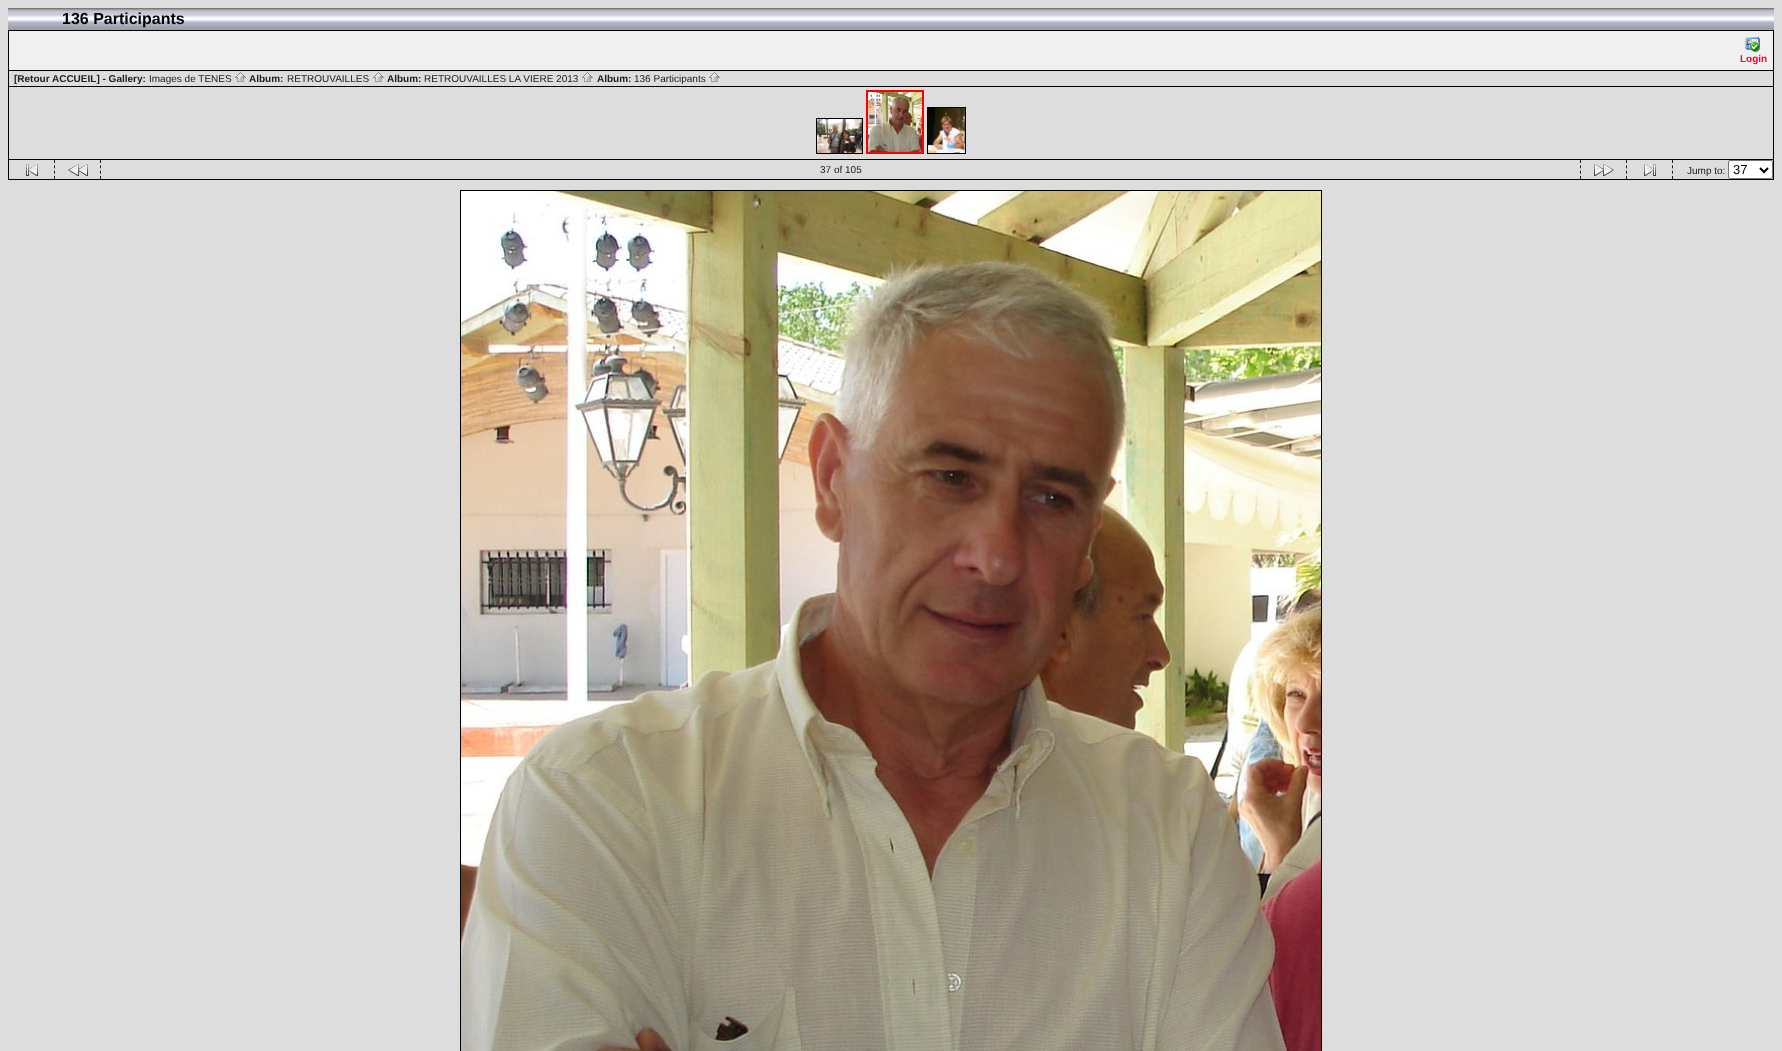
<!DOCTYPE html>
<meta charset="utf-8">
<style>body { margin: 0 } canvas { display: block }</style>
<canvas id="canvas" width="1782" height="1051"></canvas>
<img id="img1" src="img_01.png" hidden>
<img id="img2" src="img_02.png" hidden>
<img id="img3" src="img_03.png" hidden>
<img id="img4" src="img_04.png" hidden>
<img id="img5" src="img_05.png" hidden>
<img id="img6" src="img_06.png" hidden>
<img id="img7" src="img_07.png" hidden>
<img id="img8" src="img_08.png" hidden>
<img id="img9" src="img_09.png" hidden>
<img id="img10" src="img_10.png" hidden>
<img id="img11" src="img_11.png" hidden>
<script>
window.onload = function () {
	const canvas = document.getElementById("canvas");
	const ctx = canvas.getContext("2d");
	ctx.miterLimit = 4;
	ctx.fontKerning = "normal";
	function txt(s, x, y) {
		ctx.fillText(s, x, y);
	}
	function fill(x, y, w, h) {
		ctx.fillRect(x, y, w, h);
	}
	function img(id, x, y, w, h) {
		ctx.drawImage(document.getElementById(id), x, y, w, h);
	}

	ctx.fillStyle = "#DDDDDD";
	fill(0, 0, 1782, 1051);
	img("img1", 8, 8, 1766, 22);
	ctx.strokeStyle = "#000000";
	ctx.strokeRect(8.5, 30.5, 1765, 40);
	ctx.fillStyle = "#F0F0F0";
	fill(9, 31, 1764, 39);
	img("img2", 1745, 37, 15, 15);
	ctx.fillStyle = "#000000";
	fill(1773, 71, 1, 109);
	fill(8, 86, 1766, 1);
	fill(8, 71, 1, 16);
	img("img3", 235, 72, 11, 10);
	img("img3", 373, 72, 11, 10);
	img("img3", 582, 72, 11, 10);
	img("img3", 709, 72, 11, 10);
	fill(8, 159, 1766, 1);
	fill(8, 87, 1, 73);
	ctx.strokeStyle = "#FF0000";
	ctx.lineWidth = 2;
	ctx.strokeRect(867, 91, 56, 62);
	img("img4", 868, 92, 54, 60);
	ctx.strokeStyle = "#000000";
	ctx.lineWidth = 1;
	ctx.strokeRect(927.5, 107.5, 38, 46);
	ctx.strokeRect(816.5, 118.5, 46, 35);
	img("img5", 928, 108, 37, 45);
	img("img6", 817, 119, 45, 34);
	fill(8, 179, 1766, 1);
	fill(8, 160, 1, 20);
	ctx.beginPath();
	ctx.moveTo(54.5, 160);
	ctx.lineTo(54.5, 179);
	ctx.moveTo(100.5, 160);
	ctx.lineTo(100.5, 179);
	ctx.strokeStyle = "#202020";
	ctx.setLineDash([3, 2.33]);
	ctx.stroke();
	img("img7", 26, 164, 12, 12);
	ctx.beginPath();
	ctx.moveTo(1580.5, 160);
	ctx.lineTo(1580.5, 179);
	ctx.moveTo(1626.5, 160);
	ctx.lineTo(1626.5, 179);
	ctx.stroke();
	img("img8", 1594, 164, 20, 12);
	img("img9", 68, 164, 20, 12);
	img("img10", 1644, 164, 12, 12);
	ctx.beginPath();
	ctx.moveTo(1672.5, 160);
	ctx.lineTo(1672.5, 179);
	ctx.stroke();
	ctx.fillStyle = "#FFFFFF";
	ctx.beginPath();
	ctx.roundRect(1728.5, 160.5, 44, 18, 1.5);
	ctx.fill();
	ctx.strokeStyle = "#767676";
	ctx.setLineDash([]);
	ctx.stroke();
	ctx.beginPath();
	ctx.moveTo(1760, 168);
	ctx.lineTo(1764, 172);
	ctx.lineTo(1768, 168);
	ctx.strokeStyle = "#000000";
	ctx.lineWidth = 2;
	ctx.stroke();
	ctx.lineWidth = 1;
	ctx.strokeRect(460.5, 190.5, 861, 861);
	img("img11", 461, 191, 860, 860);
	ctx.font = "bold 16px Liberation Sans";
	ctx.fillStyle = "#000000";
	txt("136 Participants", 62, 24);
	ctx.font = "bold 10px Liberation Sans";
	ctx.fillStyle = "#F90028";
	txt("Login", 1740, 62);
	ctx.fillStyle = "#202020";
	txt("[Retour ACCUEIL] - Gallery:", 14, 82);
	ctx.font = "10px Liberation Sans";
	txt("Images de TENES", 149, 82);
	ctx.font = "bold 10px Liberation Sans";
	txt("Album:", 249, 82);
	ctx.font = "10px Liberation Sans";
	txt("RETROUVAILLES", 287, 82);
	ctx.font = "bold 10px Liberation Sans";
	txt("Album:", 387, 82);
	ctx.font = "10px Liberation Sans";
	txt("RETROUVAILLES LA VIERE 2013", 424, 82);
	ctx.font = "bold 10px Liberation Sans";
	txt("Album:", 597, 82);
	ctx.font = "10px Liberation Sans";
	txt("136 Participants", 634, 82);
	txt("37 of 105", 820, 173);
	txt("Jump to:", 1687, 174);
	ctx.font = "13px Liberation Sans";
	ctx.fillStyle = "#000000";
	txt("37", 1733, 174);
};
</script>
